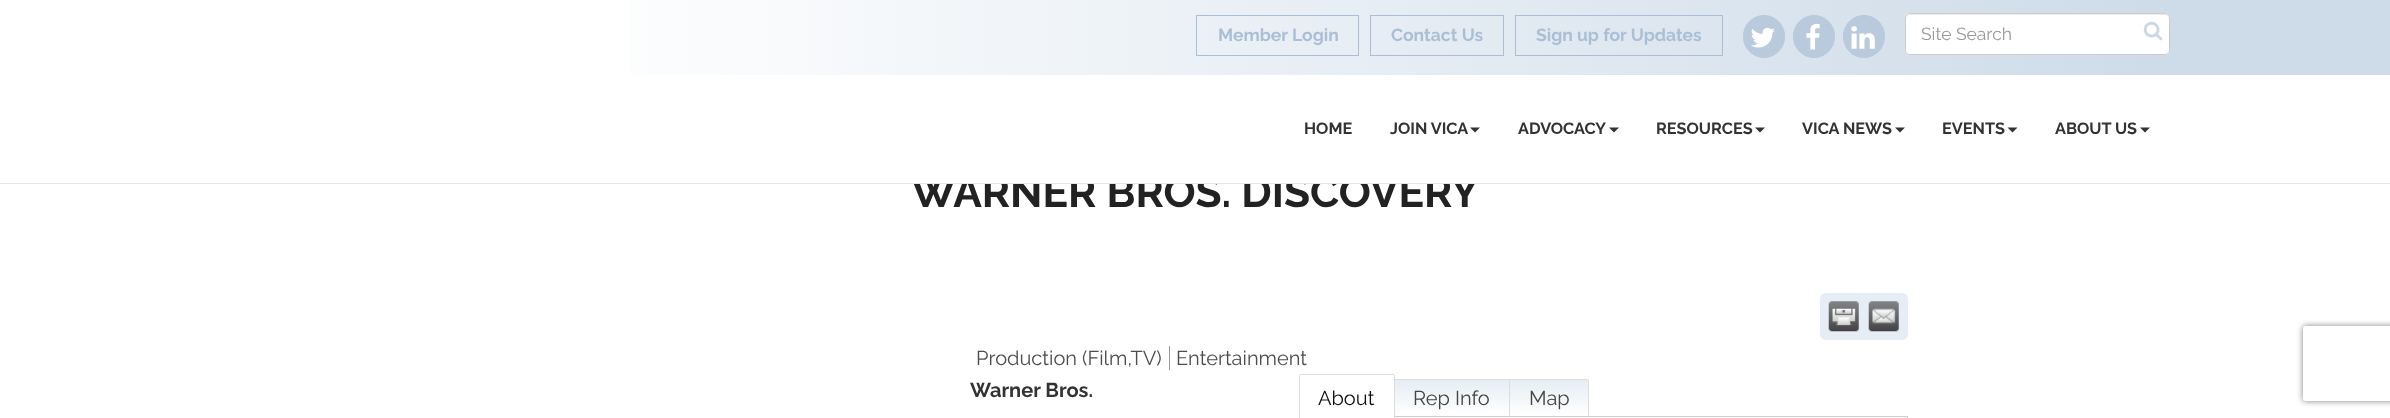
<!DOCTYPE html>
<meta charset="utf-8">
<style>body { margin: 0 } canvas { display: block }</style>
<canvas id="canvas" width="2390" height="418"></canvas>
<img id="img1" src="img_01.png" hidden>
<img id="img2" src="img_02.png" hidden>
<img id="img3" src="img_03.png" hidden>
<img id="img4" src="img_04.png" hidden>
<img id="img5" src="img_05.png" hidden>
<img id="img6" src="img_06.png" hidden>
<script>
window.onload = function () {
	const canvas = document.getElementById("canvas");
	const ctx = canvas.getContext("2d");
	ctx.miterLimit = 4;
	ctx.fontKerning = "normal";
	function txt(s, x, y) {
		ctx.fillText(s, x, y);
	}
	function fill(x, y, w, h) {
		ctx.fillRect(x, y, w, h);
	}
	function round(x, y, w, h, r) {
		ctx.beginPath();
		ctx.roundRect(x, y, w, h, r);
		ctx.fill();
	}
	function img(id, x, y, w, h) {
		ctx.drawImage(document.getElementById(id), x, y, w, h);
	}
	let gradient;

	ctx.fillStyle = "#FFFFFF";
	fill(0, 0, 2390, 418);
	gradient = ctx.createLinearGradient(545, 38, 2170, 37);
	gradient.addColorStop(0, "#FFFFFF");
	gradient.addColorStop(0.68, "#DEE7F0");
	gradient.addColorStop(1, "#CEDBE9");
	ctx.fillStyle = gradient;
	fill(629, 0, 1541, 75);
	ctx.strokeStyle = "#AABFD6";
	ctx.strokeRect(1196.5, 15.5, 162, 40);
	ctx.strokeRect(1370.5, 15.5, 133, 40);
	ctx.strokeRect(1515.5, 15.5, 207, 40);
	ctx.fillStyle = "#B9CADC";
	ctx.beginPath();
	ctx.roundRect(1743.5, 15.5, 41, 42, 20.5);
	ctx.fill();
	ctx.strokeStyle = "#B9CADC";
	ctx.stroke();
	img("img1", 1751, 27, 24, 21);
	ctx.beginPath();
	ctx.roundRect(1793.5, 15.5, 41, 42, 20.5);
	ctx.fill();
	ctx.stroke();
	img("img2", 1806, 23, 14, 27);
	ctx.beginPath();
	ctx.roundRect(1843.5, 15.5, 41, 42, 20.5);
	ctx.fill();
	ctx.stroke();
	img("img3", 1851, 26, 24, 23);
	ctx.fillStyle = "#FFFFFF";
	round(1905, 13, 265, 42, 5);
	ctx.fillStyle = "#ECECEC";
	ctx.beginPath();
	ctx.moveTo(1910, 15);
	ctx.lineTo(2165, 15);
	ctx.bezierCurveTo(2167, 15, 2169, 17, 2169, 19);
	ctx.lineTo(2169, 18);
	ctx.bezierCurveTo(2169, 16, 2167, 14, 2165, 14);
	ctx.lineTo(1910, 14);
	ctx.bezierCurveTo(1908, 14, 1906, 16, 1906, 18);
	ctx.lineTo(1906, 19);
	ctx.bezierCurveTo(1906, 17, 1908, 15, 1910, 15);
	ctx.closePath();
	ctx.fill();
	ctx.beginPath();
	ctx.roundRect(1905.5, 13.5, 264, 41, 4.5);
	ctx.strokeStyle = "#CCCCCC";
	ctx.stroke();
	img("img4", 2143, 21, 20, 20);
	ctx.fillStyle = "#CEDBE9";
	fill(2170, 0, 220, 75);
	ctx.fillStyle = "#333333";
	ctx.beginPath();
	ctx.moveTo(1470, 127.5);
	ctx.lineTo(1480, 127.5);
	ctx.lineTo(1475, 132.5);
	ctx.closePath();
	ctx.fill();
	ctx.beginPath();
	ctx.moveTo(1609, 127.5);
	ctx.lineTo(1619, 127.5);
	ctx.lineTo(1614, 132.5);
	ctx.closePath();
	ctx.fill();
	ctx.beginPath();
	ctx.moveTo(1755, 127.5);
	ctx.lineTo(1765, 127.5);
	ctx.lineTo(1760, 132.5);
	ctx.closePath();
	ctx.fill();
	ctx.beginPath();
	ctx.moveTo(1895, 127.5);
	ctx.lineTo(1905, 127.5);
	ctx.lineTo(1900, 132.5);
	ctx.closePath();
	ctx.fill();
	ctx.beginPath();
	ctx.moveTo(2007.5, 127.5);
	ctx.lineTo(2017.5, 127.5);
	ctx.lineTo(2012.5, 132.5);
	ctx.closePath();
	ctx.fill();
	ctx.beginPath();
	ctx.moveTo(2140, 127.5);
	ctx.lineTo(2150, 127.5);
	ctx.lineTo(2145, 132.5);
	ctx.closePath();
	ctx.fill();
	ctx.fillStyle = "#E6EDF4";
	round(1820, 293, 88, 47, 6);
	img("img5", 1828, 301, 31, 31);
	img("img6", 1868, 301, 31, 31);
	ctx.fillStyle = "#999999";
	fill(1169, 346, 1, 24);
	ctx.strokeRect(1299.5, 416.5, 608, 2);
	ctx.fillStyle = "#FFFFFF";
	ctx.beginPath();
	ctx.roundRect(1300, 375, 94, 43, [1, 1, 0, 0]);
	ctx.fill();
	ctx.fillStyle = "#DDDDDD";
	fill(1300, 374, 94, 1);
	fill(1394, 375, 1, 43);
	fill(1299, 375, 1, 43);
	gradient = ctx.createLinearGradient(1452, 380, 1452, 416);
	gradient.addColorStop(0, "#E6EDF4");
	gradient.addColorStop(1, "#FFFFFF");
	ctx.fillStyle = gradient;
	fill(1395, 380, 114, 32);
	ctx.fillStyle = "#DDDDDD";
	fill(1395, 379, 193, 1);
	fill(1509, 379, 1, 37);
	gradient = ctx.createLinearGradient(1549, 380, 1549, 416);
	gradient.addColorStop(0, "#E6EDF4");
	gradient.addColorStop(1, "#FFFFFF");
	ctx.fillStyle = gradient;
	ctx.beginPath();
	ctx.roundRect(1510, 380, 78, 36, [0, 1, 0, 0]);
	ctx.fill();
	ctx.fillStyle = "#DDDDDD";
	fill(1588, 380, 1, 36);
	ctx.save();
	ctx.beginPath();
	ctx.moveTo(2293, 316);
	ctx.lineTo(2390, 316);
	ctx.lineTo(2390, 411);
	ctx.lineTo(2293, 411);
	ctx.closePath();
	ctx.moveTo(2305.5, 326);
	ctx.lineTo(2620.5, 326);
	ctx.bezierCurveTo(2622, 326, 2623, 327, 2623, 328.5);
	ctx.lineTo(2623, 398.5);
	ctx.bezierCurveTo(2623, 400, 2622, 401, 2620.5, 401);
	ctx.lineTo(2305.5, 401);
	ctx.bezierCurveTo(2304, 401, 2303, 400, 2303, 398.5);
	ctx.lineTo(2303, 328.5);
	ctx.bezierCurveTo(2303, 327, 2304, 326, 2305.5, 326);
	ctx.closePath();
	ctx.clip("evenodd");
	ctx.fillStyle = "#808080";
	ctx.filter = "blur(3px)";
	ctx.beginPath();
	ctx.roundRect(2303, 326, 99, 75, 2.5);
	ctx.fill();
	ctx.filter = "none";
	ctx.restore();
	ctx.font = "bold 17.5px Raleway";
	ctx.fillStyle = "#AABFD6";
	txt("Member Login", 1218, 41);
	txt("Contact Us", 1391, 41);
	txt("Sign up for Updates", 1536, 41);
	ctx.font = "17.5px Raleway";
	ctx.fillStyle = "#999999";
	txt("Site Search", 1921, 40);
	ctx.font = "bold 16.25px Raleway";
	ctx.fillStyle = "#333333";
	txt("HOME", 1304, 134);
	txt("JOIN VICA", 1390, 134);
	txt("ADVOCACY", 1518, 134);
	txt("RESOURCES", 1656, 134);
	txt("VICA NEWS", 1802, 134);
	txt("EVENTS", 1942, 134);
	txt("ABOUT US", 2055, 134);
	ctx.font = "bold 42.5px Raleway";
	ctx.fillStyle = "#222222";
	txt("WARNER BROS. DISCOVERY", 911, 207);
	ctx.fillStyle = "#E6E6E6";
	fill(0, 183, 2390, 1);
	ctx.fillStyle = "#FFFFFF";
	fill(911, 176, 568, 7);
	ctx.font = "20px Raleway";
	ctx.fillStyle = "#4D4D4D";
	txt("Production (Film,TV)", 976, 365);
	txt("Entertainment", 1176, 365);
	ctx.font = "bold 20px Raleway";
	ctx.fillStyle = "#333333";
	txt("Warner Bros.", 970, 397);
	ctx.font = "20px Raleway";
	ctx.fillStyle = "#111111";
	txt("About", 1318, 405);
	ctx.fillStyle = "#444444";
	txt("Rep Info", 1413, 405);
	txt("Map", 1529, 405);
};
</script>
